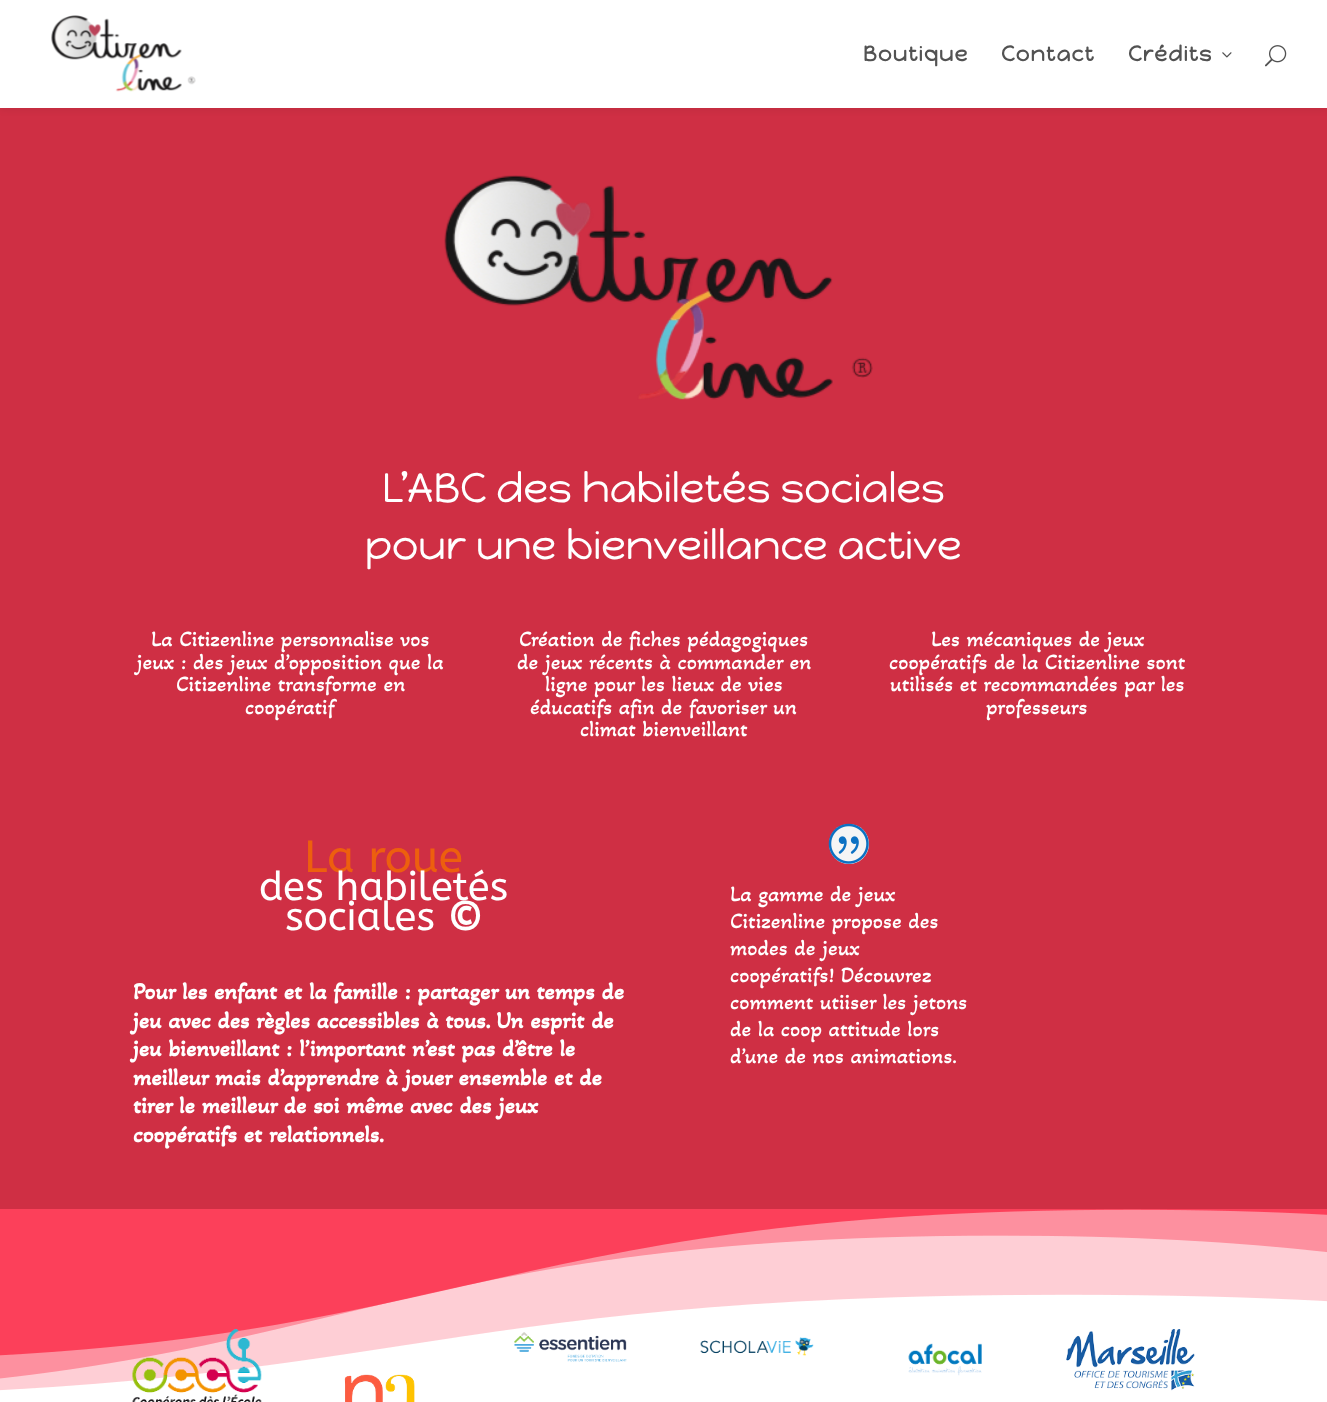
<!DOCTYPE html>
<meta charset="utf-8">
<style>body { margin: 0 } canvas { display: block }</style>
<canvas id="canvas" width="1327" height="1402"></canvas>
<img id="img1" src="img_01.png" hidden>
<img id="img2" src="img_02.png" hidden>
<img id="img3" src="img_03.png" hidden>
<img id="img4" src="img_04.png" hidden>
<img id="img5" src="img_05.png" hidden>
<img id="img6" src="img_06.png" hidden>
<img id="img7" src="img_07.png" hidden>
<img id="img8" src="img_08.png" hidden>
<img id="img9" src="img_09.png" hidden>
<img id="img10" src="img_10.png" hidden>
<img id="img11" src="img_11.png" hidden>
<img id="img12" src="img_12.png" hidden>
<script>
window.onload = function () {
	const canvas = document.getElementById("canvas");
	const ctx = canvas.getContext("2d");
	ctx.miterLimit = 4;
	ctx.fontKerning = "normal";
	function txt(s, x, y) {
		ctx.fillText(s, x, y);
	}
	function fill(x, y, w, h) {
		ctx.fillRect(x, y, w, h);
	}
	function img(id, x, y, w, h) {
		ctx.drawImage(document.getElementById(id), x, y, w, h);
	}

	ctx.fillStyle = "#CF2F44";
	fill(0, 0, 1327, 1402);
	ctx.fillStyle = "rgba(0, 0, 0, 0.1)";
	ctx.filter = "blur(4.5px)";
	ctx.beginPath();
	ctx.rect(0, 0, 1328, 108);
	ctx.fill();
	ctx.filter = "none";
	ctx.fillStyle = "#FFFFFF";
	fill(0, 0, 1327, 108);
	img("img1", 51, 15, 145, 77);
	img("img2", 1222, 52, 10, 6);
	img("img3", 1265, 45, 22, 22);
	img("img4", 444, 175, 429, 225);
	ctx.fillStyle = "#F5F5F5";
	ctx.beginPath();
	ctx.arc(849, 844, 20, 0, Math.PI * 2);
	ctx.fill();
	img("img5", 828, 823, 41, 41);
	ctx.fillStyle = "#FFFFFF";
	fill(0, 1209, 1327, 193);
	img("img6", 0, 1209, 1327, 182);
	img("img7", 132, 1329, 130, 73);
	img("img8", 514, 1332, 113, 30);
	img("img9", 700, 1337, 114, 19);
	img("img10", 908, 1343, 74, 33);
	img("img11", 1066, 1329, 129, 62);
	img("img12", 344, 1374, 71, 28);
	ctx.letterSpacing = "1.25px";
	ctx.font = "bold 21.25px Happy Monkey";
	ctx.fillStyle = "#525252";
	txt("Boutique", 863, 61);
	txt("Contact", 1001, 61);
	txt("Crédits", 1128, 61);
	ctx.letterSpacing = "0px";
	ctx.font = "41.25px Happy Monkey";
	ctx.fillStyle = "#FFFFFF";
	txt("L’ABC des habiletés sociales", 382, 502);
	txt("pour une bienveillance active", 365, 559);
	ctx.font = "22.5px Akaya Telivigala";
	txt("La Citizenline personnalise vos", 151, 646);
	txt("jeux : des jeux d’opposition que la", 137, 669);
	txt("Citizenline transforme en", 176, 691);
	txt("coopératif", 245, 714);
	txt("Création de fiches pédagogiques", 519, 646);
	txt("de jeux récents à commander en", 517, 669);
	txt("ligne pour les lieux de vies", 545, 691);
	txt("éducatifs afin de favoriser un", 530, 714);
	txt("climat bienveillant", 580, 736);
	txt("Les mécaniques de jeux", 931, 646);
	txt("coopératifs de la Citizenline sont", 889, 669);
	txt("utilisés et recommandées par les", 890, 691);
	txt("professeurs", 986, 714);
	ctx.font = "45px ABeeZee";
	ctx.fillStyle = "#ED5F0E";
	txt("La roue", 304, 872);
	ctx.font = "40px ABeeZee";
	ctx.fillStyle = "#FFFFFF";
	txt("des habiletés", 259, 900);
	txt("sociales", 285, 930);
	ctx.font = "bold 40px ABeeZee";
	txt("©", 447, 930);
	ctx.font = "bold 23.75px Akaya Telivigala";
	txt("Pour les enfant et la famille : partager un temps de", 133, 999);
	txt("jeu avec des règles accessibles à tous. Un esprit de", 133, 1028);
	txt("jeu bienveillant : l’important n’est pas d’être le", 133, 1056);
	txt("meilleur mais d’apprendre à jouer ensemble et de", 133, 1085);
	txt("tirer le meilleur de soi même avec des jeux", 133, 1113);
	txt("coopératifs et relationnels.", 133, 1142);
	ctx.font = "22.5px Akaya Telivigala";
	txt("La gamme de jeux", 730, 901);
	txt("Citizenline propose des", 730, 928);
	txt("modes de jeux", 730, 955);
	txt("coopératifs! Découvrez", 730, 982);
	txt("comment utiiser les jetons", 730, 1009);
	txt("de la coop attitude lors", 730, 1036);
	txt("d’une de nos animations.", 730, 1063);
};
</script>
